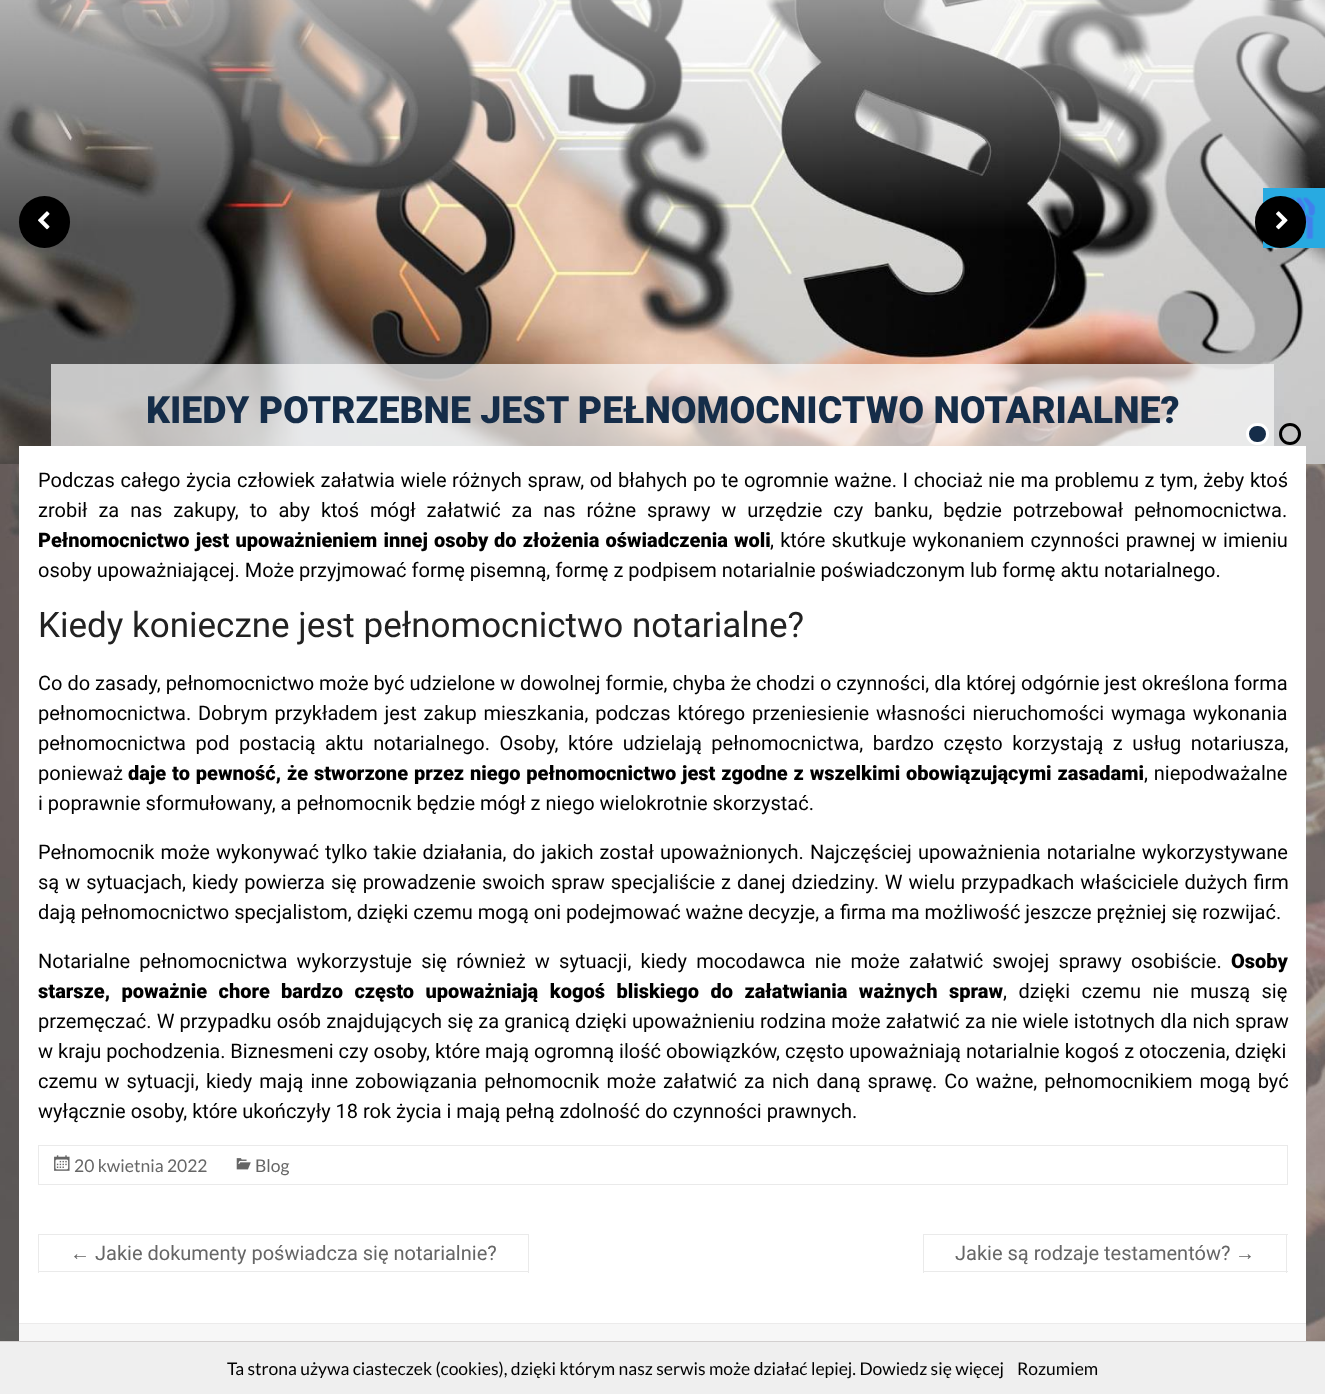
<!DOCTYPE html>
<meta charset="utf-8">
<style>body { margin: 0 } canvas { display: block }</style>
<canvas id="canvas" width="1325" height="1394"></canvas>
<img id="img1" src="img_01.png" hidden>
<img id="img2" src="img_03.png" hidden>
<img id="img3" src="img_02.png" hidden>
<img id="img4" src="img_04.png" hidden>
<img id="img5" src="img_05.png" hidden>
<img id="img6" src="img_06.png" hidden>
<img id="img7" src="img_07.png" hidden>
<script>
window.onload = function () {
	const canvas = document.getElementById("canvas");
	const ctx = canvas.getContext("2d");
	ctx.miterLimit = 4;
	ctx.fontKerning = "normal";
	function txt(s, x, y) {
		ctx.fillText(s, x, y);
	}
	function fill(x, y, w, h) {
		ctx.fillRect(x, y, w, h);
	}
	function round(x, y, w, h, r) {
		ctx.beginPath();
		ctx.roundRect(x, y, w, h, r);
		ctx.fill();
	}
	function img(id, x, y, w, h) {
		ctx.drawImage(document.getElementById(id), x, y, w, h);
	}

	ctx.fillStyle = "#FFFFFF";
	fill(0, 0, 1325, 1394);
	img("img1", 0, 464, 1325, 877);
	img("img2", 0, 0, 1325, 464);
	ctx.fillStyle = "#28AAE1";
	fill(1263, 188, 62, 60);
	img("img3", 1287, 197, 29, 42);
	ctx.fillStyle = "#000000";
	round(19, 196, 51, 52, 25.5);
	img("img4", 38, 211, 12, 19);
	round(1255, 196, 51, 52, 25.5);
	img("img5", 1276, 211, 12, 19);
	ctx.fillStyle = "rgba(248, 248, 248, 0.71)";
	fill(51, 364, 1223, 82);
	ctx.fillStyle = "#152D49";
	ctx.beginPath();
	ctx.roundRect(1247.5, 424.5, 20, 19, 9.5);
	ctx.fill();
	ctx.strokeStyle = "#FFFFFF";
	ctx.lineWidth = 3;
	ctx.stroke();
	ctx.beginPath();
	ctx.arc(1290, 434, 9.5, 0, Math.PI * 2);
	ctx.strokeStyle = "#000000";
	ctx.stroke();
	ctx.fillStyle = "#FFFFFF";
	fill(19, 446, 1287, 877);
	ctx.strokeStyle = "#EAEAEA";
	ctx.lineWidth = 1;
	ctx.strokeRect(38.5, 1145.5, 1249, 39);
	img("img6", 54, 1155, 16, 16);
	img("img7", 236, 1158, 15, 12);
	ctx.fillStyle = "#EAEAEA";
	fill(38, 1271, 52, 1);
	fill(38, 1234, 491, 1);
	fill(38, 1234, 1, 39);
	fill(528, 1234, 1, 39);
	fill(90, 1271, 439, 1);
	fill(923, 1234, 365, 1);
	fill(923, 1271, 312, 1);
	fill(923, 1234, 1, 39);
	fill(1286, 1234, 1, 39);
	fill(1235, 1271, 53, 1);
	ctx.fillStyle = "#F7F7F7";
	fill(19, 1324, 1287, 17);
	ctx.fillStyle = "#ECEBEB";
	fill(19, 1323, 1287, 1);
	ctx.fillStyle = "#EFEFEF";
	fill(0, 1342, 1325, 52);
	ctx.fillStyle = "#D3D0D0";
	fill(0, 1341, 1325, 1);
	ctx.font = "900 37.5px Roboto";
	ctx.fillStyle = "#152D49";
	txt("KIEDY POTRZEBNE JEST PEŁNOMOCNICTWO NOTARIALNE?", 146, 423);
	ctx.wordSpacing = "0.65px";
	ctx.font = "20px Roboto";
	ctx.fillStyle = "#000000";
	txt("Podczas całego życia człowiek załatwia wiele różnych spraw, od błahych po te ogromnie ważne. I chociaż nie ma problemu z tym, żeby ktoś", 38, 487);
	ctx.wordSpacing = "6px";
	txt("zrobił za nas zakupy, to aby ktoś mógł załatwić za nas różne sprawy w urzędzie czy banku, będzie potrzebował pełnomocnictwa.", 38, 517);
	ctx.wordSpacing = "1.25px";
	ctx.font = "900 20px Roboto";
	txt("Pełnomocnictwo jest upoważnieniem innej osoby", 38, 547);
	txt("do złożenia oświadczenia woli", 494, 547);
	ctx.font = "20px Roboto";
	txt(", które skutkuje wykonaniem czynności prawnej w imieniu", 770, 547);
	ctx.wordSpacing = "0px";
	txt("osoby upoważniającej. Może przyjmować formę pisemną, formę z podpisem notarialnie poświadczonym lub formę aktu notarialnego.", 38, 577);
	ctx.font = "35px Roboto";
	ctx.fillStyle = "#222222";
	txt("Kiedy konieczne jest pełnomocnictwo notarialne?", 38, 637);
	ctx.font = "20px Roboto";
	ctx.fillStyle = "#000000";
	txt("Co do zasady, pełnomocnictwo może być udzielone w dowolnej formie, chyba że chodzi o czynności, dla której odgórnie jest określona forma", 38, 690);
	ctx.wordSpacing = "1.8px";
	txt("pełnomocnictwa. Dobrym przykładem jest zakup mieszkania, podczas którego przeniesienie własności nieruchomości wymaga wykonania", 38, 720);
	ctx.wordSpacing = "4.6px";
	txt("pełnomocnictwa pod postacią", 38, 750);
	txt("aktu notarialnego. Osoby, które udzielają pełnomocnictwa, bardzo często korzystają z usług notariusza,", 325, 750);
	ctx.wordSpacing = "0px";
	txt("ponieważ", 38, 780);
	ctx.wordSpacing = "0.9px";
	ctx.font = "900 20px Roboto";
	txt("daje to pewność, że stworzone przez niego pełnomocnictwo jest zgodne z wszelkimi obowiązującymi zasadami", 128, 780);
	ctx.font = "20px Roboto";
	txt(", niepodważalne", 1144, 780);
	ctx.wordSpacing = "0px";
	txt("i poprawnie sformułowany, a pełnomocnik będzie mógł z niego wielokrotnie skorzystać.", 38, 810);
	ctx.wordSpacing = "1.1px";
	txt("Pełnomocnik może wykonywać tylko takie działania, do jakich został upoważnionych. Najczęściej upoważnienia notarialne wykorzystywane", 38, 859);
	ctx.wordSpacing = "1px";
	txt("są w sytuacjach, kiedy powierza się prowadzenie swoich spraw specjaliście z danej dziedziny. W wielu przypadkach właściciele dużych firm", 38, 889);
	ctx.wordSpacing = "0px";
	txt("dają pełnomocnictwo specjalistom, dzięki czemu mogą oni podejmować ważne decyzje, a firma ma możliwość jeszcze prężniej się rozwijać.", 38, 919);
	ctx.wordSpacing = "4.25px";
	txt("Notarialne pełnomocnictwa wykorzystuje się również w sytuacji, kiedy mocodawca nie może załatwić swojej sprawy osobiście.", 38, 968);
	ctx.wordSpacing = "0px";
	ctx.font = "900 20px Roboto";
	txt("Osoby", 1231, 968);
	ctx.wordSpacing = "6.5px";
	txt("starsze, poważnie chore", 38, 998);
	txt("bardzo często upoważniają kogoś bliskiego do załatwiania ważnych spraw", 281, 998);
	ctx.font = "20px Roboto";
	txt(", dzięki czemu nie muszą się", 1003, 998);
	ctx.wordSpacing = "0.2px";
	txt("przemęczać. W przypadku osób znajdujących się za granicą dzięki upoważnieniu rodzina może załatwić za nie wiele istotnych dla nich spraw", 38, 1028);
	ctx.wordSpacing = "0px";
	txt("w kraju pochodzenia. Biznesmeni czy osoby, które mają ogromną ilość obowiązków, często upoważniają notarialnie kogoś z otoczenia, dzięki", 38, 1058);
	ctx.wordSpacing = "2.1px";
	txt("czemu w sytuacji, kiedy mają inne zobowiązania pełnomocnik może załatwić za nich daną sprawę. Co ważne, pełnomocnikiem mogą być", 38, 1088);
	ctx.wordSpacing = "0px";
	txt("wyłącznie osoby, które ukończyły 18 rok życia i mają pełną zdolność do czynności prawnych.", 38, 1118);
	ctx.font = "17.5px Lato";
	ctx.fillStyle = "#666666";
	txt("20 kwietnia 2022", 74, 1172);
	txt("Blog", 255, 1172);
	ctx.font = "20px Liberation Sans";
	txt("←", 70, 1260);
	ctx.font = "20px Roboto";
	txt("Jakie dokumenty poświadcza się notarialnie?", 95, 1260);
	txt("Jakie są rodzaje testamentów?", 955, 1260);
	ctx.font = "20px Liberation Sans";
	txt("→", 1235, 1260);
	ctx.font = "17.5px Lato";
	ctx.fillStyle = "#000000";
	txt("Ta strona używa ciasteczek (cookies), dzięki którym nasz serwis może działać lepiej. Dowiedz się więcej", 227, 1375);
	txt("Rozumiem", 1017, 1375);
};
</script>
